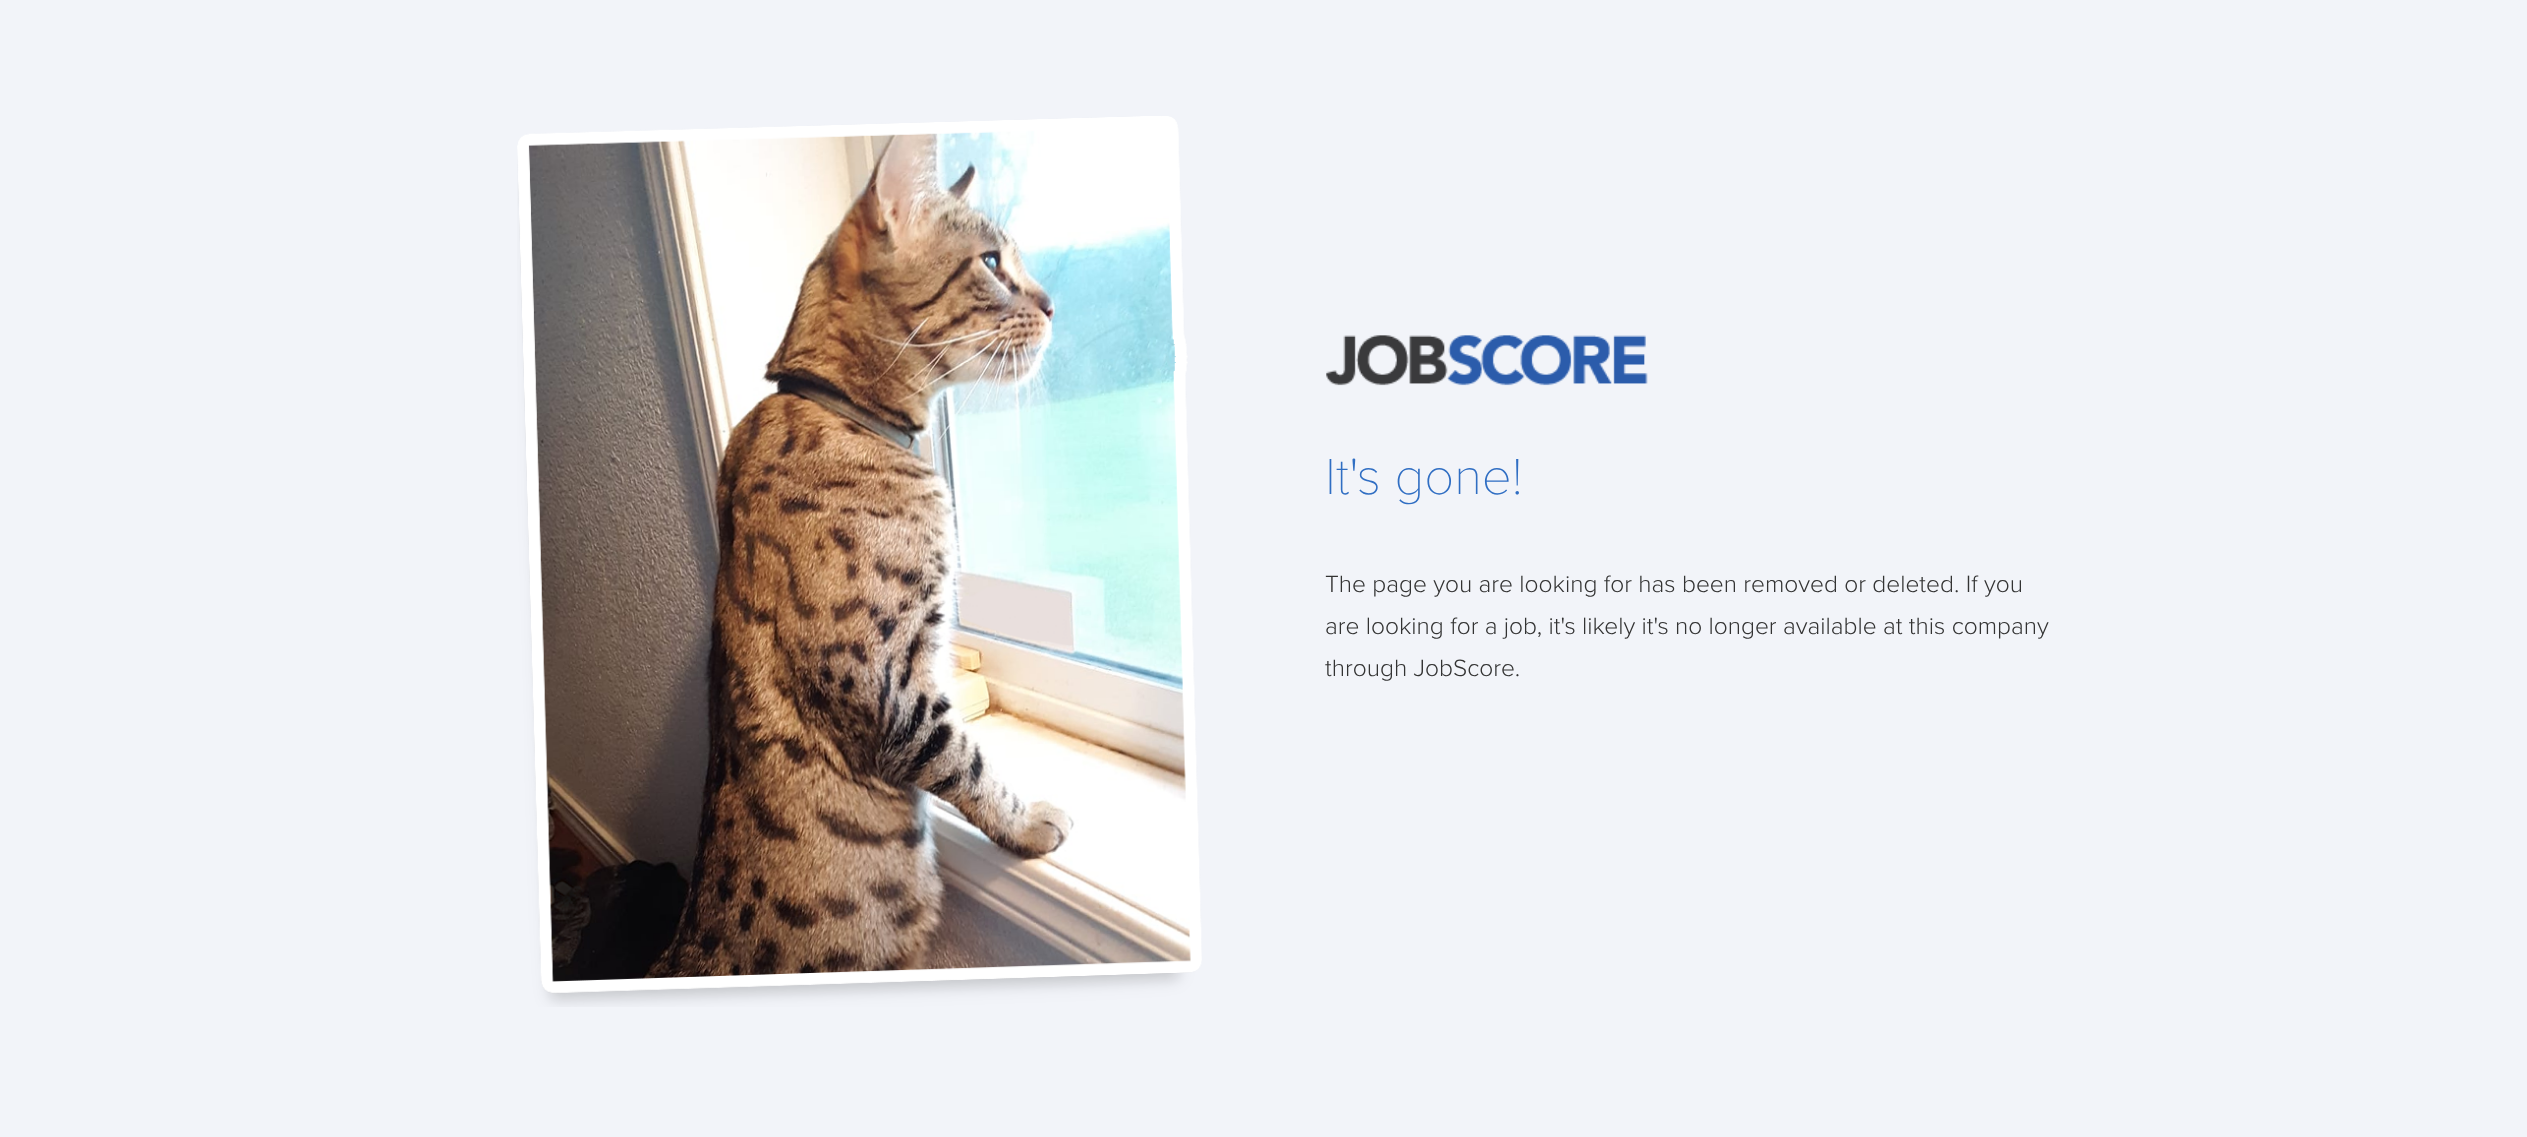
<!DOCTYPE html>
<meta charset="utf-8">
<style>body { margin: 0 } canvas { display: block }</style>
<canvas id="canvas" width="2527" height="1137"></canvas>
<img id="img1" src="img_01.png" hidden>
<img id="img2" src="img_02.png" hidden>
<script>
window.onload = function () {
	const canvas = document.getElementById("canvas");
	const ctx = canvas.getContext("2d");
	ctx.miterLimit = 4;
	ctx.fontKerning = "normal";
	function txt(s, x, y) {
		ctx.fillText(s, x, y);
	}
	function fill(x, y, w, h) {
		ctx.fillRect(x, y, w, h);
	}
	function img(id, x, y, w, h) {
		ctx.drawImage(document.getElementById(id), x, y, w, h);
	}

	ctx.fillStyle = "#F2F4F9";
	fill(0, 0, 2527, 1137);
	img("img1", 517, 116, 685, 891);
	img("img2", 1326, 335, 322, 51);
	ctx.font = "100 52.5px Proxima Nova";
	ctx.fillStyle = "#306EC3";
	txt("It's gone!", 1325, 494);
	ctx.font = "300 24.5px Proxima Nova";
	ctx.fillStyle = "#333333";
	txt("The page you are looking for has been removed or deleted. If you", 1325, 592);
	txt("are looking for a job, it's likely it's no longer available at this company", 1325, 634);
	txt("through JobScore.", 1325, 676);
};
</script>
